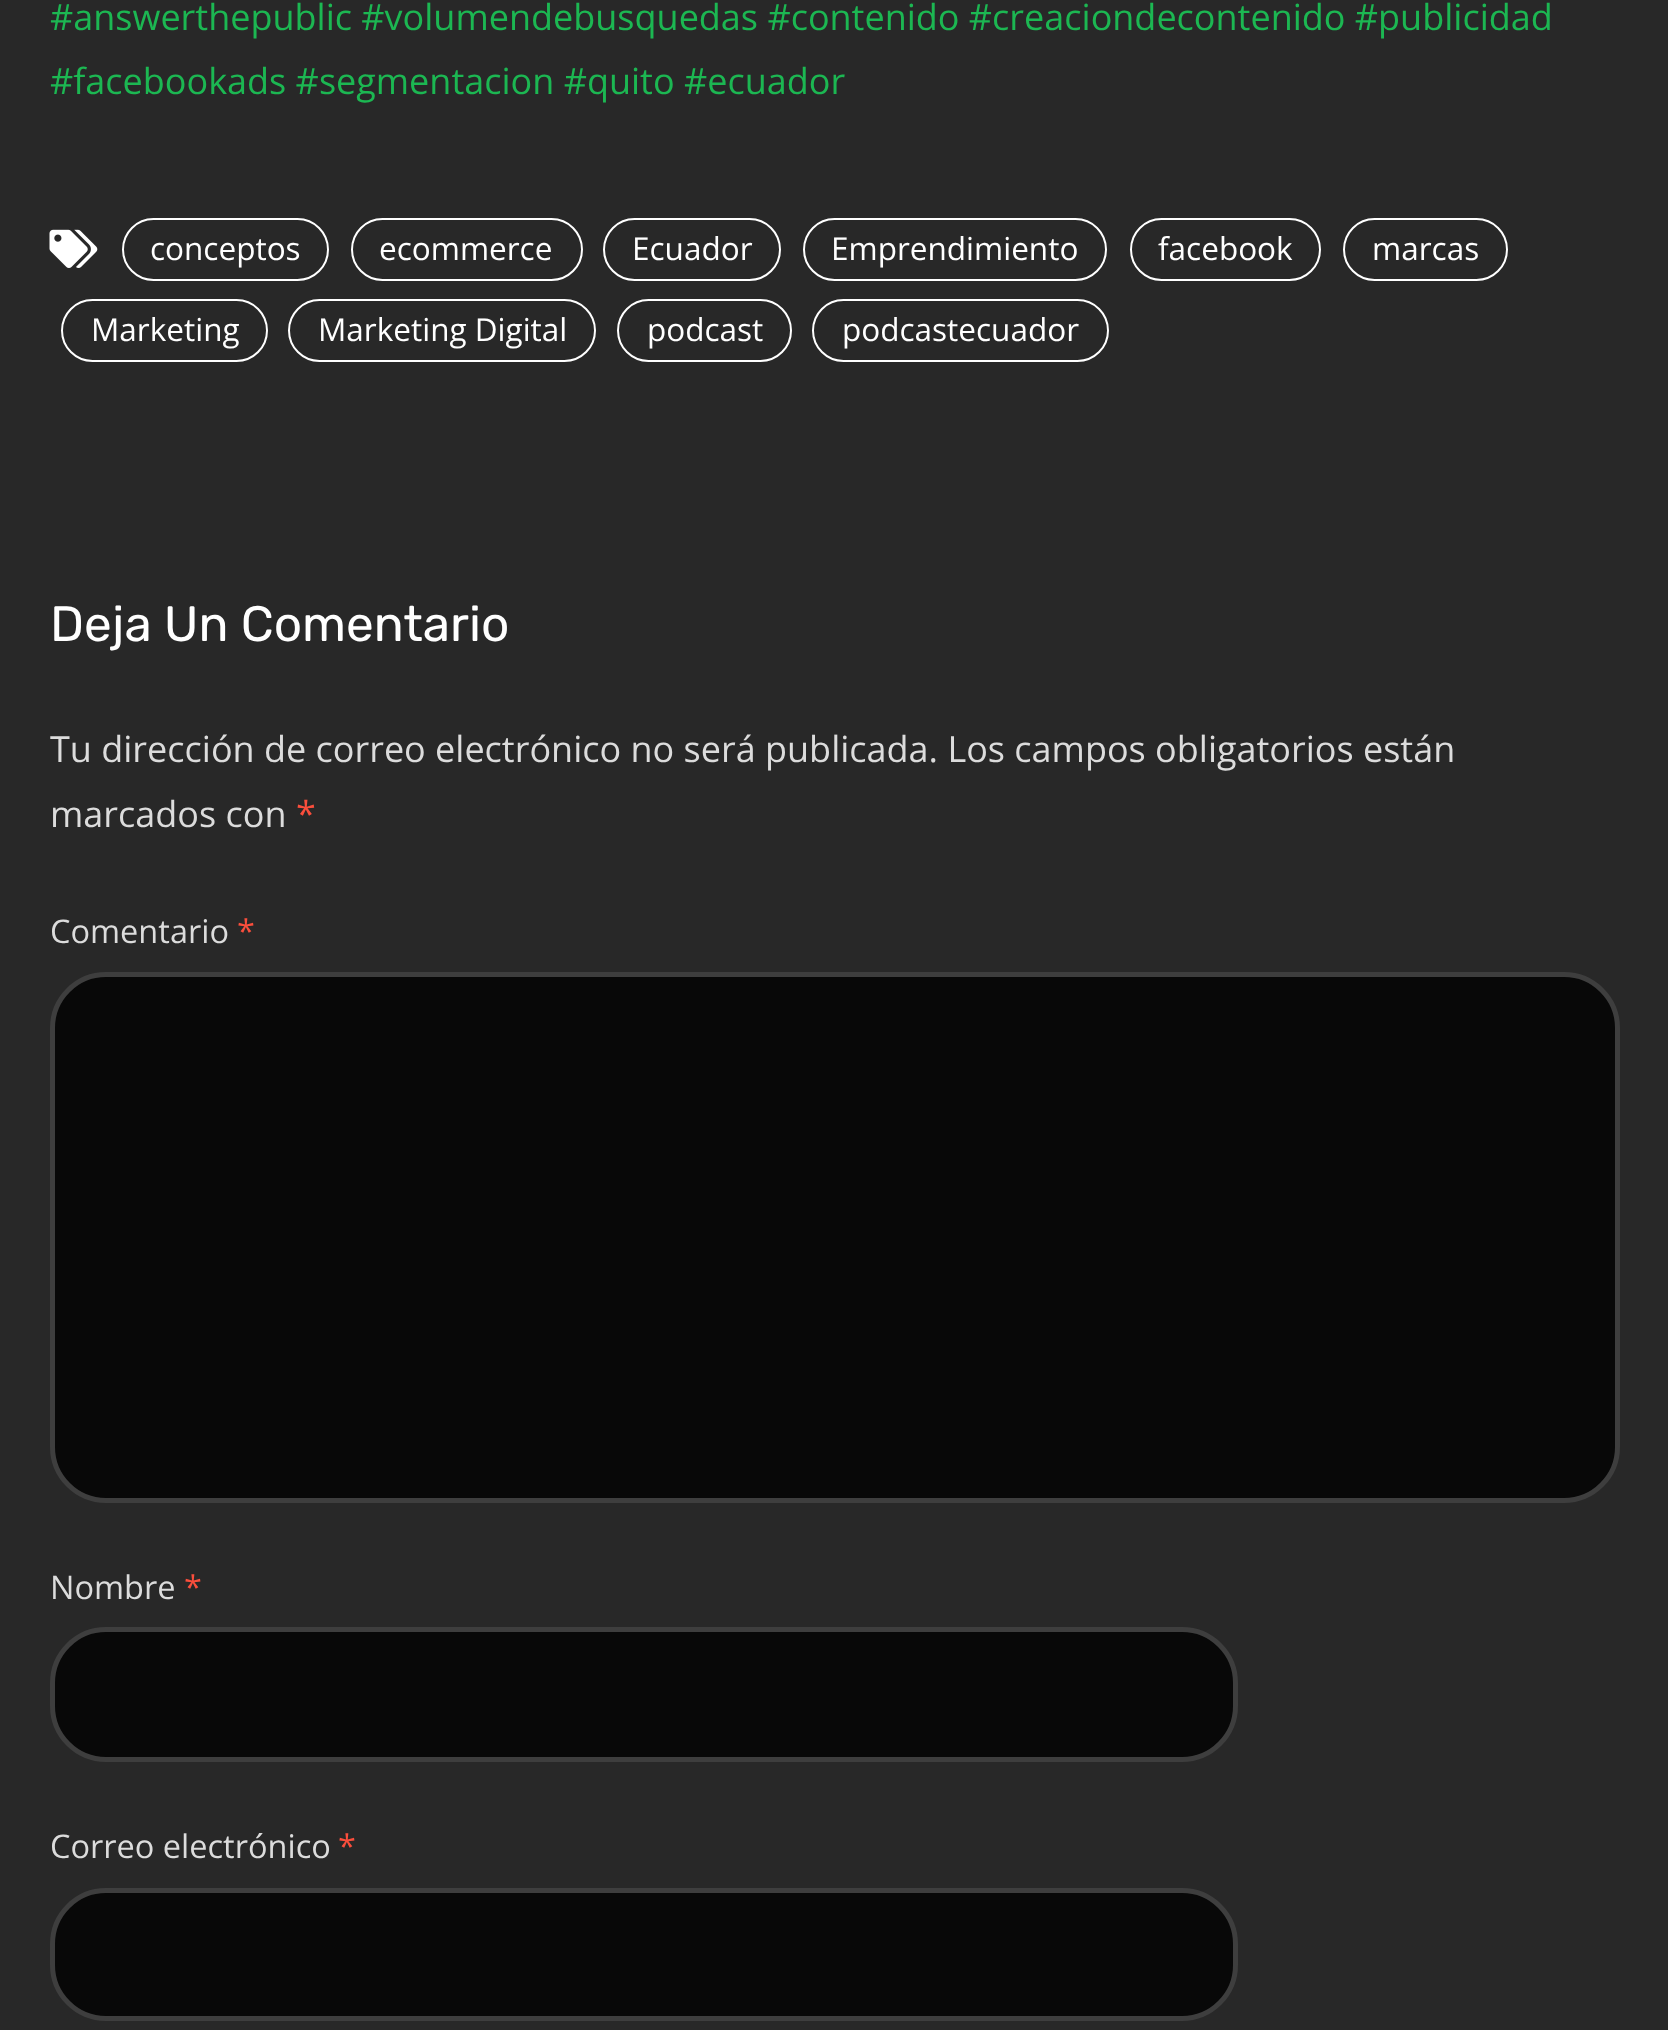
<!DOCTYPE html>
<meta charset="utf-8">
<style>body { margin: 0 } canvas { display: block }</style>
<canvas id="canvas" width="1668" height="2030"></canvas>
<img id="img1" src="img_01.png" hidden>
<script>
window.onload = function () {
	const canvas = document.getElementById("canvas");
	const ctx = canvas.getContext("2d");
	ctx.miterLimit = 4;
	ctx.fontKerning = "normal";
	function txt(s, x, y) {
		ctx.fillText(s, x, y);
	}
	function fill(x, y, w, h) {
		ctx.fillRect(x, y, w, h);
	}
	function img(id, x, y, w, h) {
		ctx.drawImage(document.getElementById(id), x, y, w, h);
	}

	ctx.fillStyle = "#282828";
	fill(0, 0, 1668, 2030);
	img("img1", 49, 229, 49, 39);
	ctx.beginPath();
	ctx.roundRect(123, 219, 205, 61, 30.5);
	ctx.strokeStyle = "#FFFFFF";
	ctx.lineWidth = 2;
	ctx.stroke();
	ctx.beginPath();
	ctx.roundRect(352, 219, 230, 61, 30.5);
	ctx.stroke();
	ctx.beginPath();
	ctx.roundRect(604, 219, 176, 61, 30.5);
	ctx.stroke();
	ctx.beginPath();
	ctx.roundRect(804, 219, 302, 61, 30.5);
	ctx.stroke();
	ctx.beginPath();
	ctx.roundRect(1131, 219, 189, 61, 30.5);
	ctx.stroke();
	ctx.beginPath();
	ctx.roundRect(1344, 219, 163, 61, 30.5);
	ctx.stroke();
	ctx.beginPath();
	ctx.roundRect(62, 300, 205, 61, 30.5);
	ctx.stroke();
	ctx.beginPath();
	ctx.roundRect(289, 300, 306, 61, 30.5);
	ctx.stroke();
	ctx.beginPath();
	ctx.roundRect(618, 300, 173, 61, 30.5);
	ctx.stroke();
	ctx.beginPath();
	ctx.roundRect(813, 300, 295, 61, 30.5);
	ctx.stroke();
	ctx.fillStyle = "#080808";
	ctx.beginPath();
	ctx.roundRect(52.5, 974.5, 1565, 526, 53.5);
	ctx.fill();
	ctx.strokeStyle = "#3E3E3E";
	ctx.lineWidth = 5;
	ctx.stroke();
	ctx.beginPath();
	ctx.roundRect(52.5, 1629.5, 1183, 130, 53.5);
	ctx.fill();
	ctx.stroke();
	ctx.beginPath();
	ctx.roundRect(52.5, 1890.5, 1183, 128, 53.5);
	ctx.fill();
	ctx.stroke();
	ctx.font = "36px Open Sans";
	ctx.fillStyle = "#1CB752";
	txt("#answerthepublic #volumendebusquedas #contenido #creaciondecontenido #publicidad", 50, 30);
	txt("#facebookads #segmentacion #quito #ecuador", 50, 94);
	ctx.font = "31.5px Open Sans";
	ctx.fillStyle = "#FFFFFF";
	txt("conceptos", 150, 260);
	txt("ecommerce", 379, 260);
	txt("Ecuador", 632, 260);
	txt("Emprendimiento", 831, 260);
	txt("facebook", 1158, 260);
	txt("marcas", 1372, 260);
	txt("Marketing", 91, 341);
	txt("Marketing Digital", 318, 341);
	txt("podcast", 647, 341);
	txt("podcastecuador", 842, 341);
	ctx.font = "49.5px Rubik";
	txt("Deja Un Comentario", 50, 641);
	ctx.font = "36px Open Sans";
	ctx.fillStyle = "#DCDCDC";
	txt("Tu dirección de correo electrónico no será publicada. Los campos obligatorios están", 50, 762);
	txt("marcados con", 50, 827);
	ctx.fillStyle = "#FA4E3C";
	txt("*", 296, 827);
	ctx.font = "32.5px Open Sans";
	ctx.fillStyle = "#DCDCDC";
	txt("Comentario", 50, 943);
	ctx.fillStyle = "#FA4E3C";
	txt("*", 237, 943);
	ctx.fillStyle = "#DCDCDC";
	txt("Nombre", 50, 1599);
	ctx.fillStyle = "#FA4E3C";
	txt("*", 184, 1599);
	ctx.fillStyle = "#DCDCDC";
	txt("Correo electrónico", 50, 1858);
	ctx.fillStyle = "#FA4E3C";
	txt("*", 338, 1858);
};
</script>
